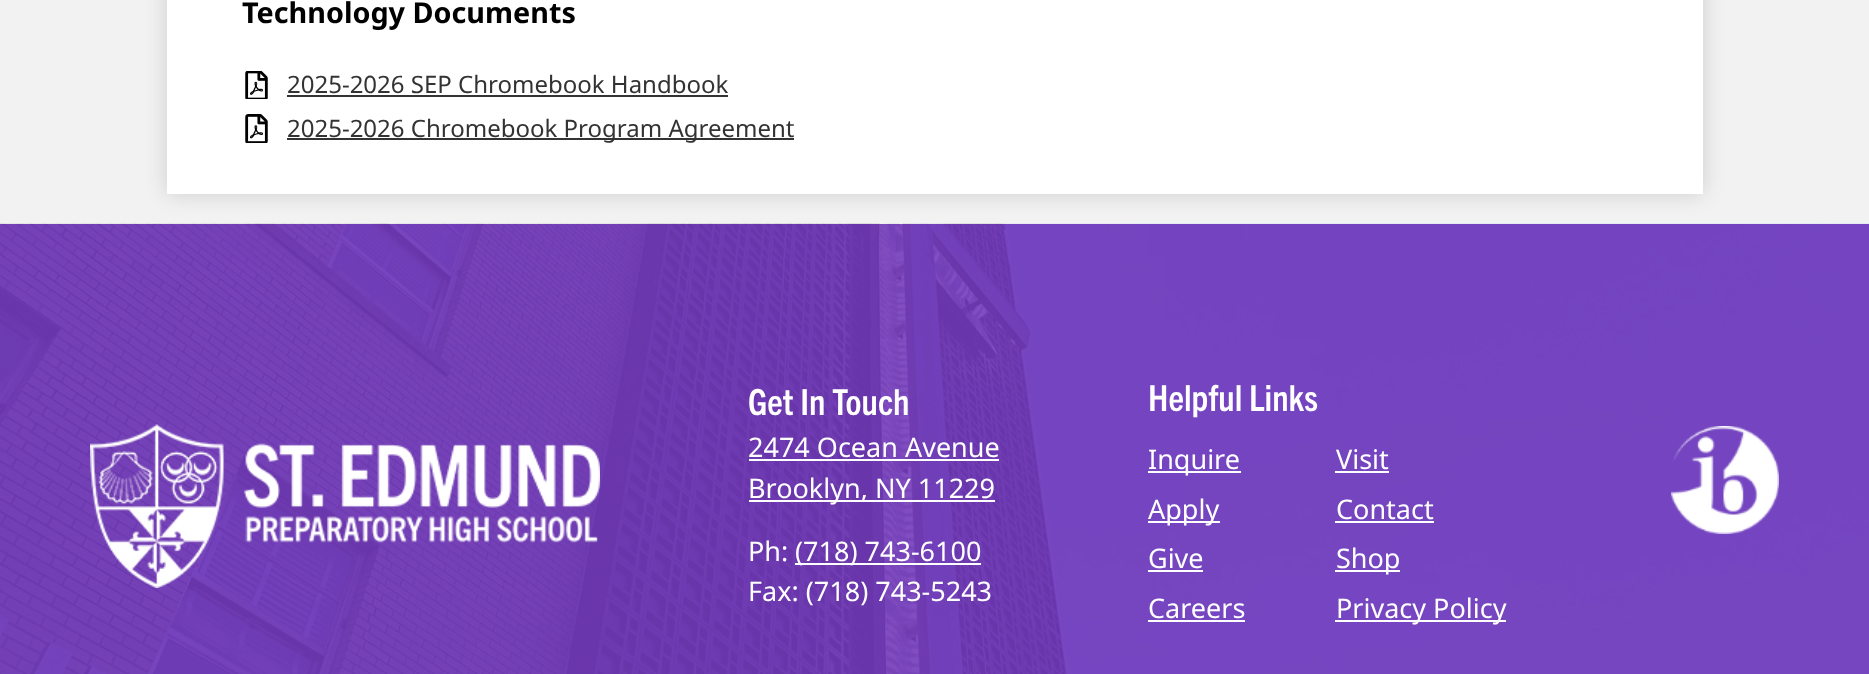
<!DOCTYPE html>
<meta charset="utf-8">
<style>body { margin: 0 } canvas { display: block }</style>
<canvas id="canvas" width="1869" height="674"></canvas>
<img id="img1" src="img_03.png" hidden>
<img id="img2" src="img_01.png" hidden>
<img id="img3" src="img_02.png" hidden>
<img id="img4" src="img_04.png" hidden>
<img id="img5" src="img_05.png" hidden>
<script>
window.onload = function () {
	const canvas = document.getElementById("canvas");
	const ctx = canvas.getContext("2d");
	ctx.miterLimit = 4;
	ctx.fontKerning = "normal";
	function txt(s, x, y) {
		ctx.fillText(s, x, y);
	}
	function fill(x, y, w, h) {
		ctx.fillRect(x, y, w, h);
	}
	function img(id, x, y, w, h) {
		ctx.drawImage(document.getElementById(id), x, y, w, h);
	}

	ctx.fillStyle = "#F2F2F2";
	fill(0, 0, 1869, 674);
	ctx.fillStyle = "#753BBD";
	fill(0, 224, 1869, 450);
	img("img1", 0, 223, 1869, 451);
	ctx.fillStyle = "rgba(0, 0, 0, 0.15)";
	ctx.filter = "blur(11px)";
	ctx.beginPath();
	ctx.rect(167, -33, 1536, 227);
	ctx.fill();
	ctx.filter = "none";
	ctx.fillStyle = "#FFFFFF";
	fill(167, 0, 1536, 194);
	img("img2", 245, 71, 23, 28);
	ctx.fillStyle = "#333333";
	fill(287, 95, 441, 2);
	img("img3", 245, 114, 23, 29);
	fill(287, 138, 507, 2);
	img("img4", 90, 424, 510, 164);
	ctx.fillStyle = "#FFFFFF";
	fill(749, 459, 250, 2);
	fill(749, 500, 246, 2);
	fill(795, 563, 186, 2);
	fill(1148, 471, 93, 2);
	fill(1335, 471, 54, 2);
	fill(1148, 521, 72, 2);
	fill(1335, 521, 99, 2);
	fill(1148, 570, 55, 2);
	fill(1335, 570, 65, 2);
	fill(1148, 620, 97, 2);
	fill(1335, 620, 171, 2);
	img("img5", 1671, 426, 108, 108);
	ctx.font = "bold 28.75px Noto Sans";
	ctx.fillStyle = "#000000";
	txt("Technology Documents", 242, 23);
	ctx.font = "24px Noto Sans";
	ctx.fillStyle = "#333333";
	txt("2025-2026 SEP Chromebook Handbook", 287, 93);
	txt("2025-2026 Chromebook Program Agreement", 287, 137);
	ctx.font = "bold 36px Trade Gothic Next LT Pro";
	ctx.fillStyle = "#FFFFFF";
	txt("Get In Touch", 748, 415);
	ctx.font = "27px Noto Sans";
	txt("2474 Ocean Avenue", 748, 457);
	txt("Brooklyn, NY 11229", 748, 498);
	txt("Ph:", 748, 561);
	txt("(718) 743-6100", 795, 561);
	txt("Fax: (718) 743-5243", 748, 601);
	ctx.font = "bold 36px Trade Gothic Next LT Pro";
	txt("Helpful Links", 1148, 411);
	ctx.font = "27px Noto Sans";
	txt("Inquire", 1148, 469);
	txt("Visit", 1336, 469);
	txt("Apply", 1148, 519);
	txt("Contact", 1336, 519);
	txt("Give", 1148, 568);
	txt("Shop", 1336, 568);
	txt("Careers", 1148, 618);
	txt("Privacy Policy", 1336, 618);
};
</script>
